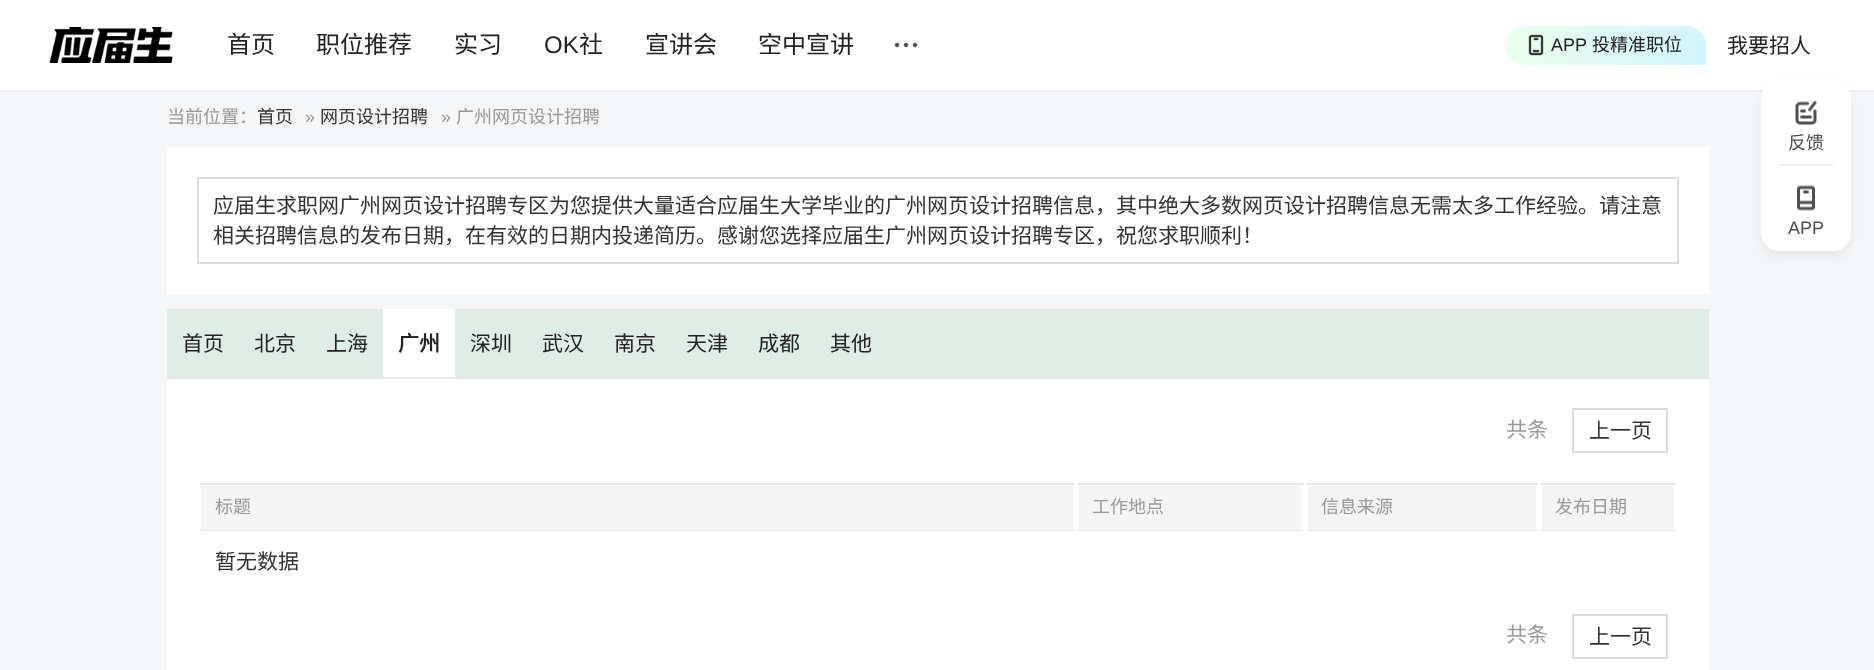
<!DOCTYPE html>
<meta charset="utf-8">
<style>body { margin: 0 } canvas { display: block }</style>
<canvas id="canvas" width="1874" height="670"></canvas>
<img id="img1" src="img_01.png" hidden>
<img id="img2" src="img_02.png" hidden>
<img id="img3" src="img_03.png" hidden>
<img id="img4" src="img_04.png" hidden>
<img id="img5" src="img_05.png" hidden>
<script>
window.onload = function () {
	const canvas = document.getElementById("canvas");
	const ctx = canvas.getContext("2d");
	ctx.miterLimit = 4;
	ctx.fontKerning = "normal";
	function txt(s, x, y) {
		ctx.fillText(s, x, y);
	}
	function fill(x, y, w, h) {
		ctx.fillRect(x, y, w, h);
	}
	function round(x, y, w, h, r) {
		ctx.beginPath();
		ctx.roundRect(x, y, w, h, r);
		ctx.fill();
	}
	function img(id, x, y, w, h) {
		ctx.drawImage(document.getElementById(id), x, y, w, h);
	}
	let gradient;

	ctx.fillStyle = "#F5F6F7";
	fill(0, 0, 1874, 670);
	ctx.fillStyle = "#FFFFFF";
	fill(0, 0, 1874, 90);
	ctx.fillStyle = "#EDEFF2";
	fill(0, 90, 1874, 2);
	img("img1", 49, 27, 124, 36);
	img("img2", 894, 42, 24, 6);
	gradient = ctx.createLinearGradient(1706, 50, 1505, 40);
	gradient.addColorStop(0, "#CFF4FF");
	gradient.addColorStop(0, "#D2F5FD");
	gradient.addColorStop(1, "#EBFFED");
	ctx.fillStyle = gradient;
	ctx.beginPath();
	ctx.roundRect(1506, 26, 200, 39, [19.5, 19.5, 1, 19.5]);
	ctx.fill();
	img("img3", 1528, 34, 16, 22);
	ctx.fillStyle = "rgba(76, 79, 84, 0.08)";
	ctx.filter = "blur(6px)";
	ctx.beginPath();
	ctx.roundRect(1761, 86, 90, 171, 18);
	ctx.fill();
	ctx.filter = "none";
	ctx.fillStyle = "#FFFFFF";
	round(1761, 80, 90, 171, 18);
	img("img4", 1795, 100, 22, 25);
	ctx.fillStyle = "#EDEFF2";
	fill(1779, 164, 54, 2);
	img("img5", 1797, 185, 18, 26);
	ctx.fillStyle = "#FFFFFF";
	fill(167, 147, 1542, 147);
	ctx.strokeStyle = "#DDDDDD";
	ctx.lineWidth = 2;
	ctx.strokeRect(198, 178, 1480, 85);
	fill(167, 379, 1542, 291);
	ctx.fillStyle = "#E0EDE6";
	fill(167, 309, 1542, 68);
	ctx.fillStyle = "#E8E8E8";
	fill(167, 377, 1542, 2);
	ctx.fillStyle = "#FFFFFF";
	fill(383, 309, 72, 68);
	ctx.strokeRect(1573, 409, 94, 43);
	ctx.fillStyle = "#E8E8E8";
	fill(198, 483, 1481, 2);
	fill(198, 530, 1481, 1);
	ctx.fillStyle = "#FFFFFF";
	fill(198, 483, 2, 50);
	ctx.fillStyle = "#F5F5F5";
	fill(201, 486, 872, 44);
	ctx.fillStyle = "#FFFFFF";
	fill(1074, 483, 3, 50);
	ctx.fillStyle = "#F5F5F5";
	fill(1079, 486, 223, 44);
	ctx.fillStyle = "#FFFFFF";
	fill(1304, 483, 3, 50);
	ctx.fillStyle = "#F5F5F5";
	fill(1308, 486, 228, 44);
	ctx.fillStyle = "#FFFFFF";
	fill(1676, 483, 3, 50);
	fill(1538, 483, 3, 50);
	ctx.fillStyle = "#F5F5F5";
	fill(1542, 486, 132, 44);
	ctx.strokeRect(1573, 615, 94, 43);
	ctx.font = "24px Noto Sans CJK SC";
	ctx.fillStyle = "#222222";
	txt("首页", 227, 53);
	txt("职位推荐", 316, 53);
	txt("实习", 454, 53);
	ctx.font = "24px Liberation Sans";
	txt("OK", 544, 53);
	ctx.font = "24px Noto Sans CJK SC";
	txt("社", 579, 53);
	txt("宣讲会", 645, 53);
	txt("空中宣讲", 758, 53);
	ctx.font = "18px Liberation Sans";
	txt("APP", 1551, 51);
	ctx.font = "18px Noto Sans CJK SC";
	txt("投精准职位", 1592, 51);
	ctx.font = "21px Noto Sans CJK SC";
	txt("我要招人", 1727, 53);
	ctx.font = "18px Noto Sans CJK SC";
	ctx.fillStyle = "#999999";
	txt("当前位置：", 167, 123);
	ctx.fillStyle = "#333333";
	txt("首页", 257, 123);
	ctx.font = "18px Liberation Sans";
	ctx.fillStyle = "#999999";
	txt("»", 305, 123);
	ctx.font = "18px Noto Sans CJK SC";
	ctx.fillStyle = "#333333";
	txt("网页设计招聘", 320, 123);
	ctx.font = "18px Liberation Sans";
	ctx.fillStyle = "#999999";
	txt("»", 441, 123);
	ctx.font = "18px Noto Sans CJK SC";
	txt("广州网页设计招聘", 456, 123);
	ctx.fillStyle = "#4C4F54";
	txt("反馈", 1788, 149);
	ctx.font = "18px Liberation Sans";
	txt("APP", 1788, 234);
	ctx.font = "21px Noto Sans CJK SC";
	ctx.fillStyle = "#333333";
	txt("应届生求职网广州网页设计招聘专区为您提供大量适合应届生大学毕业的广州网页设计招聘信息，其中绝大多数网页设计招聘信息无需太多工作经验。请注意", 213, 213);
	txt("相关招聘信息的发布日期，在有效的日期内投递简历。感谢您选择应届生广州网页设计招聘专区，祝您求职顺利！", 213, 243);
	ctx.fillStyle = "#222222";
	txt("首页", 182, 351);
	txt("北京", 254, 351);
	txt("上海", 326, 351);
	ctx.font = "bold 21px Noto Sans CJK SC";
	txt("广州", 398, 351);
	ctx.font = "21px Noto Sans CJK SC";
	txt("深圳", 470, 351);
	txt("武汉", 542, 351);
	txt("南京", 614, 351);
	txt("天津", 686, 351);
	txt("成都", 758, 351);
	txt("其他", 830, 351);
	ctx.fillStyle = "#999999";
	txt("共条", 1506, 437);
	ctx.fillStyle = "#333333";
	txt("上一页", 1589, 438);
	ctx.font = "18px Noto Sans CJK SC";
	ctx.fillStyle = "#999999";
	txt("标题", 215, 513);
	txt("工作地点", 1092, 513);
	txt("信息来源", 1321, 513);
	txt("发布日期", 1555, 513);
	ctx.font = "21px Noto Sans CJK SC";
	ctx.fillStyle = "#333333";
	txt("暂无数据", 215, 569);
	ctx.fillStyle = "#999999";
	txt("共条", 1506, 642);
	ctx.fillStyle = "#333333";
	txt("上一页", 1589, 644);
};
</script>
